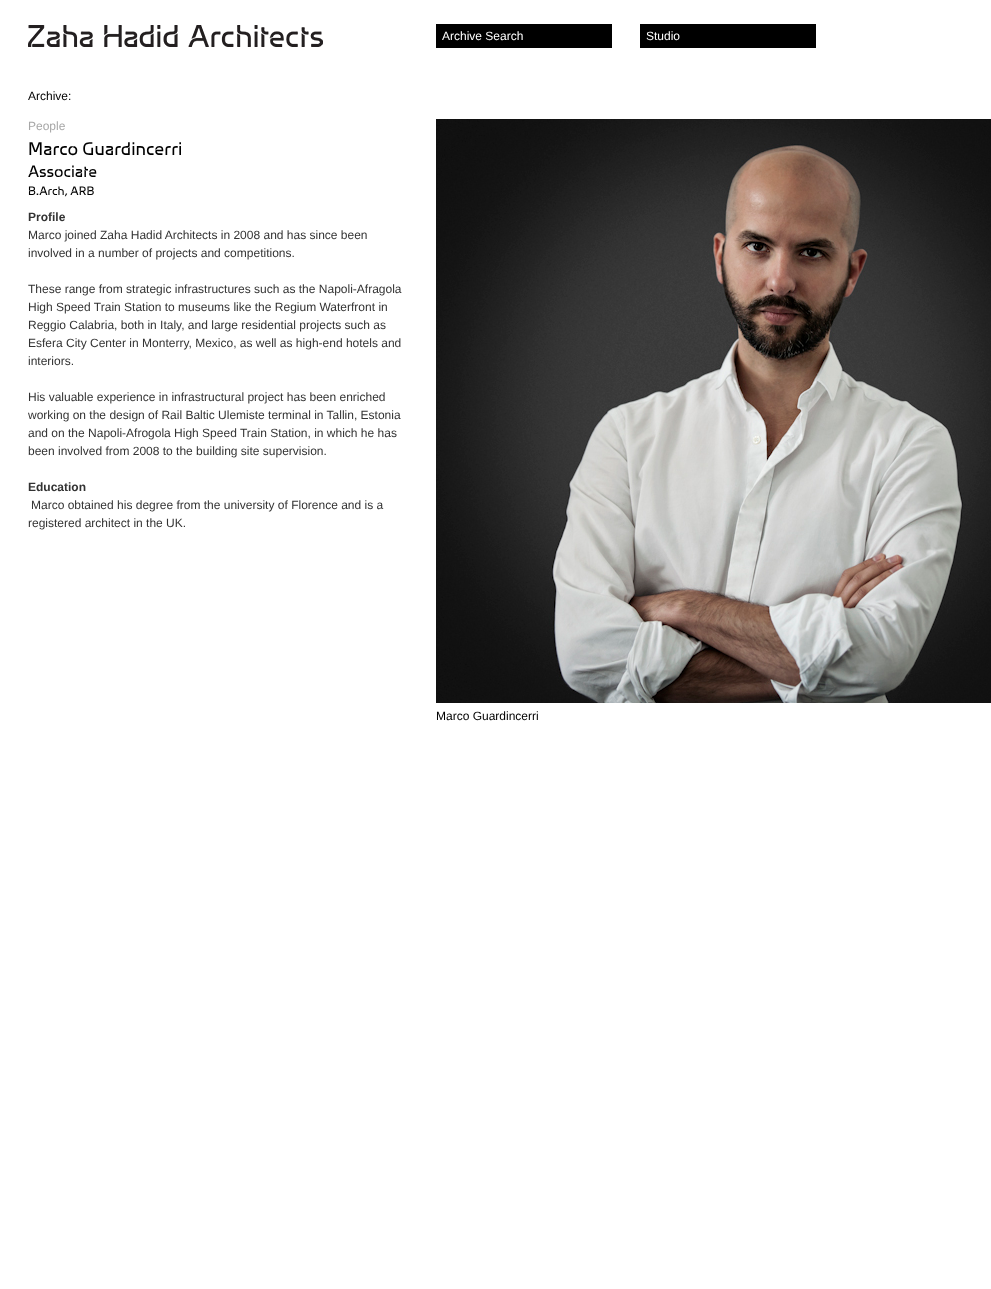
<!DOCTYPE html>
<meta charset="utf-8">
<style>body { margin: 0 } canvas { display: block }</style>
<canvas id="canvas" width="991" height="1289"></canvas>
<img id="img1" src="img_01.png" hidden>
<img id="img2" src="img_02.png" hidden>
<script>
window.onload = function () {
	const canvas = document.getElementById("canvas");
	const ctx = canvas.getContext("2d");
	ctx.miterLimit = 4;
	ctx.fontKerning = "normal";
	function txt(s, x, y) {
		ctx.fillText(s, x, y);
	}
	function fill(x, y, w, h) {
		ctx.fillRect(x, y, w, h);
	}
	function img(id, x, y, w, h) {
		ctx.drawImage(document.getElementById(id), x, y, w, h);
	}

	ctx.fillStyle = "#FFFFFF";
	fill(0, 0, 991, 1289);
	img("img1", 28, 25, 295, 22);
	ctx.fillStyle = "#000000";
	fill(436, 24, 176, 24);
	fill(640, 24, 176, 24);
	img("img2", 436, 119, 555, 584);
	ctx.font = "12px Liberation Sans";
	ctx.fillStyle = "#FFFFFF";
	txt("Archive Search", 442, 40);
	txt("Studio", 646, 40);
	ctx.fillStyle = "#000000";
	txt("Archive:", 28, 100);
	ctx.fillStyle = "#A7A7A7";
	txt("People", 28, 130);
	ctx.font = "500 18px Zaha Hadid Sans";
	ctx.fillStyle = "#000000";
	txt("Marco Guardincerri", 28, 155);
	ctx.font = "500 16px Zaha Hadid Sans";
	txt("Associate", 28, 177);
	ctx.font = "500 12px Zaha Hadid Sans";
	txt("B.Arch, ARB", 28, 195);
	ctx.font = "bold 12px Liberation Sans";
	ctx.fillStyle = "#333333";
	txt("Profile", 28, 221);
	ctx.font = "12px Liberation Sans";
	txt("Marco joined Zaha Hadid Architects in 2008 and has since been", 28, 239);
	txt("involved in a number of projects and competitions.", 28, 257);
	txt("These range from strategic infrastructures such as the Napoli-Afragola", 28, 293);
	txt("High Speed Train Station to museums like the Regium Waterfront in", 28, 311);
	txt("Reggio Calabria, both in Italy, and large residential projects such as", 28, 329);
	txt("Esfera City Center in Monterry, Mexico, as well as high-end hotels and", 28, 347);
	txt("interiors.", 28, 365);
	txt("His valuable experience in infrastructural project has been enriched", 28, 401);
	txt("working on the design of Rail Baltic Ulemiste terminal in Tallin, Estonia", 28, 419);
	txt("and on the Napoli-Afrogola High Speed Train Station, in which he has", 28, 437);
	txt("been involved from 2008 to the building site supervision.", 28, 455);
	ctx.font = "bold 12px Liberation Sans";
	txt("Education", 28, 491);
	ctx.font = "12px Liberation Sans";
	txt("Marco obtained his degree from the university of Florence and is a", 31, 509);
	txt("registered architect in the UK.", 28, 527);
	ctx.fillStyle = "#000000";
	txt("Marco Guardincerri", 436, 720);
};
</script>
